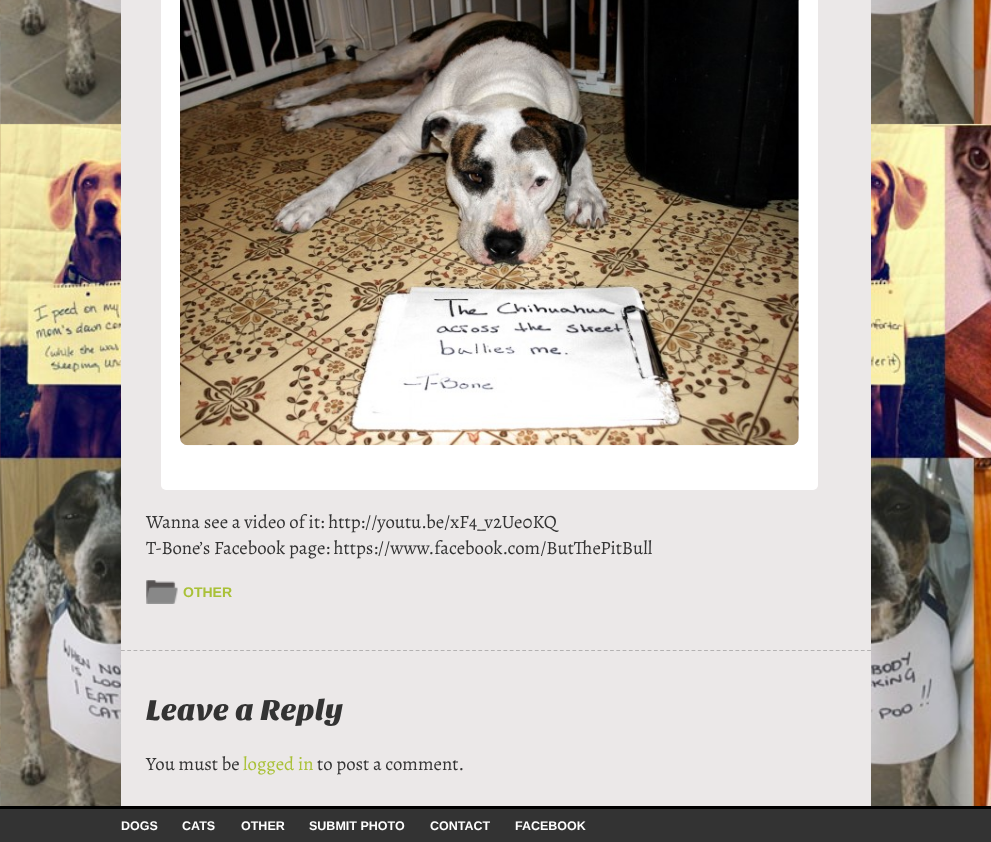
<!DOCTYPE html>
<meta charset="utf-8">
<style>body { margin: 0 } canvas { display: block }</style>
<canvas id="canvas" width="991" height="842"></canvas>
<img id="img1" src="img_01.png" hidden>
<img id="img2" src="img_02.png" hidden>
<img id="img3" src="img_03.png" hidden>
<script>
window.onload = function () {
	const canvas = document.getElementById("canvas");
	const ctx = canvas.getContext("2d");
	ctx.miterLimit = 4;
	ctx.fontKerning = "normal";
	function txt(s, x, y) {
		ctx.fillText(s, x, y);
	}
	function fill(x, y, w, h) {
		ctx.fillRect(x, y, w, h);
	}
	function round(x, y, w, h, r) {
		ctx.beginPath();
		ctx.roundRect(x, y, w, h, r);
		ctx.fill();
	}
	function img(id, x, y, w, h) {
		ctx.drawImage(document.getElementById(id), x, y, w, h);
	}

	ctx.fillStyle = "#FFFFFF";
	fill(0, 0, 991, 842);
	img("img1", 0, 0, 991, 806);
	ctx.fillStyle = "#EBE8E8";
	fill(121, 0, 750, 806);
	ctx.beginPath();
	ctx.moveTo(121, 650.5);
	ctx.lineTo(871, 650.5);
	ctx.strokeStyle = "#B4B2B2";
	ctx.lineWidth = 1.2;
	ctx.setLineDash([3.75, 2.52]);
	ctx.stroke();
	ctx.fillStyle = "#FFFFFF";
	round(161, -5, 657, 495, 5);
	img("img2", 180, 0, 619, 446);
	img("img3", 146, 580, 32, 24);
	ctx.fillStyle = "#333333";
	fill(0, 809, 991, 33);
	ctx.fillStyle = "#000000";
	fill(0, 806, 991, 3);
	ctx.font = "18.75px Alegreya";
	ctx.fillStyle = "#333333";
	txt("Wanna see a video of it: http://youtu.be/xF4_v2Ue0KQ", 146, 528);
	txt("T-Bone’s Facebook page: https://www.facebook.com/ButThePitBull", 146, 554);
	ctx.font = "bold 14px Liberation Sans";
	ctx.fillStyle = "#A9C137";
	txt("OTHER", 183, 597);
	ctx.font = "30px Sansita One";
	ctx.fillStyle = "#333333";
	txt("Leave a Reply", 146, 720);
	ctx.font = "18.75px Alegreya";
	txt("You must be", 146, 770);
	ctx.fillStyle = "#A9C137";
	txt("logged in", 243, 770);
	ctx.fillStyle = "#333333";
	txt("to post a comment.", 317, 770);
	ctx.font = "bold 12.5px Liberation Sans";
	ctx.fillStyle = "#FFFFFF";
	txt("DOGS", 121, 830);
	txt("CATS", 182, 830);
	txt("OTHER", 241, 830);
	txt("SUBMIT PHOTO", 309, 830);
	txt("CONTACT", 430, 830);
	txt("FACEBOOK", 515, 830);
};
</script>
